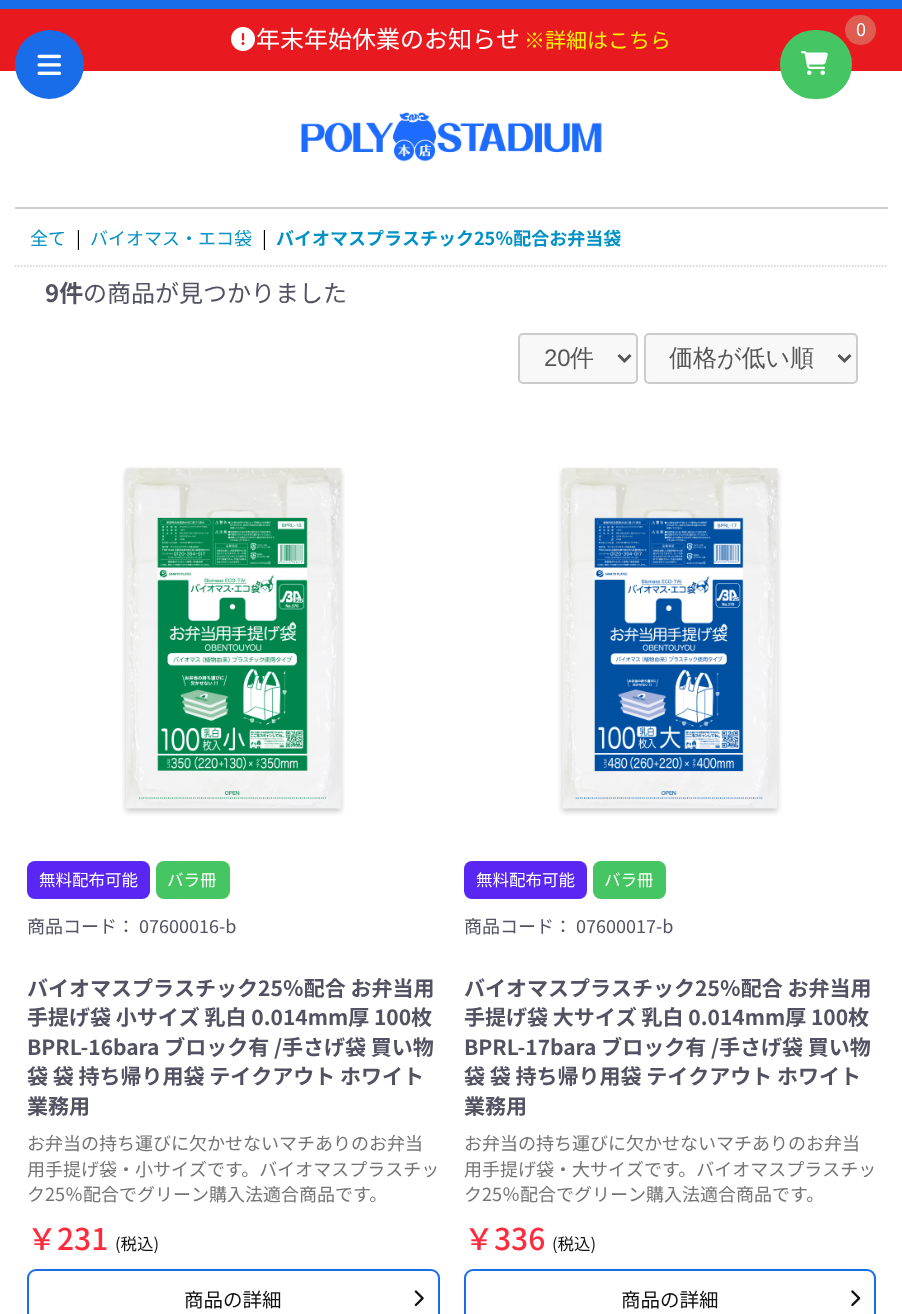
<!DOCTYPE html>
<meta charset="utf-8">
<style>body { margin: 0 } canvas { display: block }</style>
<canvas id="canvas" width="902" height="1314"></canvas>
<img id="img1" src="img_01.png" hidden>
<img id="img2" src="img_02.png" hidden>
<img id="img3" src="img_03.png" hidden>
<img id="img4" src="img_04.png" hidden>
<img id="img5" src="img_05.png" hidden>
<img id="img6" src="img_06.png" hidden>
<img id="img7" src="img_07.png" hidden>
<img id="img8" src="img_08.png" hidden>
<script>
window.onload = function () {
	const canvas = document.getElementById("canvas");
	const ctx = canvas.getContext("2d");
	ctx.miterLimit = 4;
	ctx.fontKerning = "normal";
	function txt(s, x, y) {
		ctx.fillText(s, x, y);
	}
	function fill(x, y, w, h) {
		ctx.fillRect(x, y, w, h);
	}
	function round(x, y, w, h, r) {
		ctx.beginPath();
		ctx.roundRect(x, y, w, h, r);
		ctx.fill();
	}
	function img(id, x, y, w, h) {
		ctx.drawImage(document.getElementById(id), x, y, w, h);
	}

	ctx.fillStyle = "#FFFFFF";
	fill(0, 0, 902, 1314);
	ctx.fillStyle = "#1A6DE8";
	fill(0, 0, 902, 9);
	ctx.fillStyle = "#E81A1F";
	fill(0, 9, 902, 62);
	ctx.fillStyle = "#1A6DE8";
	ctx.beginPath();
	ctx.arc(49.5, 64.5, 34.5, 0, Math.PI * 2);
	ctx.fill();
	img("img1", 37, 54, 25, 21);
	img("img2", 231, 27, 24, 24);
	ctx.fillStyle = "#46C663";
	ctx.beginPath();
	ctx.roundRect(781, 31, 70, 67, 33.5);
	ctx.fill();
	ctx.strokeStyle = "#46C663";
	ctx.lineWidth = 2;
	ctx.stroke();
	img("img3", 801, 51, 27, 24);
	ctx.fillStyle = "#DE5D50";
	round(845, 15, 31, 30, 15);
	img("img4", 301, 112, 301, 50);
	ctx.fillStyle = "#CCCCCC";
	fill(15, 207, 873, 2);
	ctx.beginPath();
	ctx.moveTo(15, 266);
	ctx.lineTo(888, 266);
	ctx.strokeStyle = "#CCCCCC";
	ctx.lineWidth = 1.5;
	ctx.setLineDash([1.5, 1.5]);
	ctx.stroke();
	ctx.fillStyle = "#F8F8F8";
	ctx.beginPath();
	ctx.roundRect(519, 334, 118, 49, 4);
	ctx.fill();
	ctx.lineWidth = 2;
	ctx.setLineDash([]);
	ctx.stroke();
	ctx.beginPath();
	ctx.moveTo(618.5, 355);
	ctx.lineTo(624.5, 361);
	ctx.lineTo(630.5, 355);
	ctx.strokeStyle = "#555555";
	ctx.lineWidth = 3;
	ctx.stroke();
	ctx.beginPath();
	ctx.roundRect(645, 334, 212, 49, 4);
	ctx.fill();
	ctx.strokeStyle = "#CCCCCC";
	ctx.lineWidth = 2;
	ctx.stroke();
	ctx.beginPath();
	ctx.moveTo(838.5, 355);
	ctx.lineTo(844.5, 361);
	ctx.lineTo(850.5, 355);
	ctx.strokeStyle = "#555555";
	ctx.lineWidth = 3;
	ctx.stroke();
	img("img5", 122, 466, 223, 350);
	ctx.fillStyle = "#5A26F1";
	round(27, 861, 123, 38, 8);
	ctx.fillStyle = "#46C663";
	round(156, 861, 74, 38, 8);
	ctx.beginPath();
	ctx.roundRect(28, 1270, 411, 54, 8);
	ctx.strokeStyle = "#1A6DE8";
	ctx.lineWidth = 2;
	ctx.stroke();
	img("img6", 414, 1290, 10, 17);
	img("img7", 558, 467, 224, 349);
	ctx.fillStyle = "#5A26F1";
	round(464, 861, 123, 38, 8);
	ctx.fillStyle = "#46C663";
	round(593, 861, 73, 38, 8);
	ctx.beginPath();
	ctx.roundRect(465, 1270, 410, 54, 8);
	ctx.stroke();
	img("img8", 851, 1290, 10, 17);
	ctx.font = "24px Noto Sans JP";
	ctx.fillStyle = "#FFFFFF";
	txt("年末年始休業のお知らせ", 256, 48);
	ctx.font = "21px Noto Sans JP";
	ctx.fillStyle = "#F5F203";
	txt("※詳細はこちら", 524, 48);
	ctx.font = "18px Noto Sans JP";
	ctx.fillStyle = "#FFFFFF";
	txt("0", 856, 36);
	ctx.fillStyle = "#0092C4";
	txt("全て", 30, 245);
	ctx.fillStyle = "#000000";
	txt("|", 76, 245);
	ctx.fillStyle = "#0092C4";
	txt("バイオマス・エコ袋", 90, 245);
	ctx.fillStyle = "#000000";
	txt("|", 262, 245);
	ctx.font = "bold 18px Noto Sans JP";
	ctx.fillStyle = "#0092C4";
	txt("バイオマスプラスチック25％配合お弁当袋", 276, 245);
	ctx.font = "bold 24px Noto Sans JP";
	ctx.fillStyle = "#525263";
	txt("9件", 45, 302);
	ctx.font = "24px Noto Sans JP";
	txt("の商品が見つかりました", 83, 302);
	ctx.font = "24px Liberation Sans";
	ctx.fillStyle = "#555555";
	txt("20", 544, 366);
	ctx.font = "500 24px WenQuanYi Zen Hei";
	txt("件", 570, 366);
	txt("価格が低い順", 669, 366);
	ctx.font = "16.5px Noto Sans JP";
	ctx.fillStyle = "#FFFFFF";
	txt("無料配布可能", 39, 886);
	txt("バラ冊", 167, 886);
	ctx.font = "18px Noto Sans JP";
	ctx.fillStyle = "#525263";
	txt("商品コード： 07600016-b", 27, 933);
	ctx.font = "bold 21px Noto Sans JP";
	txt("バイオマスプラスチック25％配合 お弁当用", 27, 996);
	txt("手提げ袋 小サイズ 乳白 0.014mm厚 100枚", 27, 1025);
	txt("BPRL-16bara ブロック有 /手さげ袋 買い物", 27, 1055);
	txt("袋 袋 持ち帰り用袋 テイクアウト ホワイト", 27, 1084);
	txt("業務用", 27, 1114);
	ctx.font = "18px Noto Sans JP";
	ctx.fillStyle = "#747474";
	txt("お弁当の持ち運びに欠かせないマチありのお弁当", 27, 1150);
	txt("用手提げ袋・小サイズです。バイオマスプラスチッ", 27, 1176);
	txt("ク25％配合でグリーン購入法適合商品です。", 27, 1201);
	ctx.font = "500 30px Noto Sans JP";
	ctx.fillStyle = "#FF2C3E";
	txt("￥231", 27, 1250);
	ctx.font = "16.5px Noto Sans JP";
	ctx.fillStyle = "#101010";
	txt("(税込)", 115, 1250);
	ctx.font = "19.5px Noto Sans JP";
	txt("商品の詳細", 184, 1307);
	ctx.font = "16.5px Noto Sans JP";
	ctx.fillStyle = "#FFFFFF";
	txt("無料配布可能", 476, 886);
	txt("バラ冊", 604, 886);
	ctx.font = "18px Noto Sans JP";
	ctx.fillStyle = "#525263";
	txt("商品コード： 07600017-b", 464, 933);
	ctx.font = "bold 21px Noto Sans JP";
	txt("バイオマスプラスチック25％配合 お弁当用", 464, 996);
	txt("手提げ袋 大サイズ 乳白 0.014mm厚 100枚", 464, 1025);
	txt("BPRL-17bara ブロック有 /手さげ袋 買い物", 464, 1055);
	txt("袋 袋 持ち帰り用袋 テイクアウト ホワイト", 464, 1084);
	txt("業務用", 464, 1114);
	ctx.font = "18px Noto Sans JP";
	ctx.fillStyle = "#747474";
	txt("お弁当の持ち運びに欠かせないマチありのお弁当", 464, 1150);
	txt("用手提げ袋・大サイズです。バイオマスプラスチッ", 464, 1176);
	txt("ク25％配合でグリーン購入法適合商品です。", 464, 1201);
	ctx.font = "500 30px Noto Sans JP";
	ctx.fillStyle = "#FF2C3E";
	txt("￥336", 464, 1250);
	ctx.font = "16.5px Noto Sans JP";
	ctx.fillStyle = "#101010";
	txt("(税込)", 552, 1250);
	ctx.font = "19.5px Noto Sans JP";
	txt("商品の詳細", 621, 1307);
};
</script>
